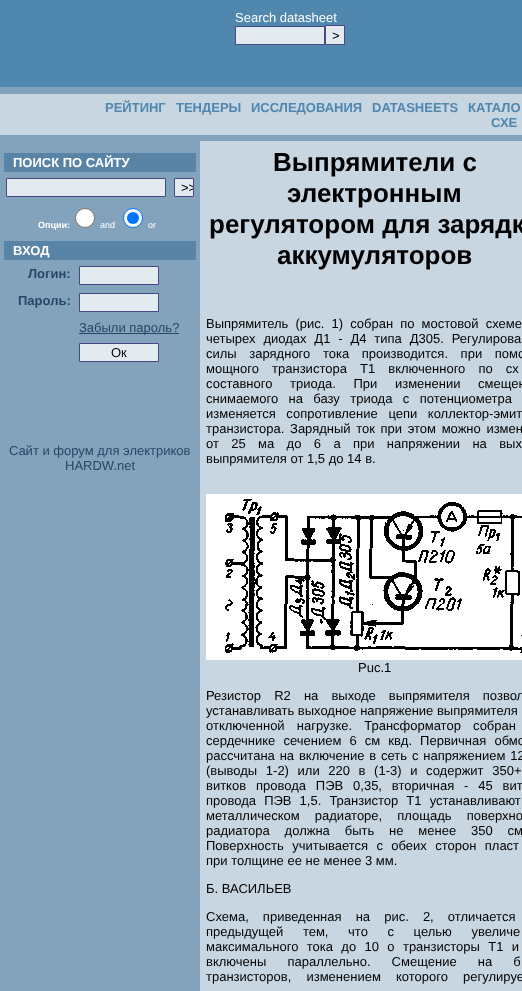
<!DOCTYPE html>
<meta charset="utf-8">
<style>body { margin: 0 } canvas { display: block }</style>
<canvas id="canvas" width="522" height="991"></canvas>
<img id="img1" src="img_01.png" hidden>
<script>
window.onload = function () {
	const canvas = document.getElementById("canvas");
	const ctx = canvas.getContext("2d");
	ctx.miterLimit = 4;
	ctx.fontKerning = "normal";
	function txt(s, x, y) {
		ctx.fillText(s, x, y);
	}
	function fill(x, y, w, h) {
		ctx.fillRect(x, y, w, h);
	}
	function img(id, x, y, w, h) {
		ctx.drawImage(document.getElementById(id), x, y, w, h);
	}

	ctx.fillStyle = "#C8D6E1";
	fill(0, 0, 522, 991);
	ctx.fillStyle = "#5087AF";
	fill(0, 0, 522, 87);
	ctx.fillStyle = "#E3EAF0";
	ctx.beginPath();
	ctx.rect(235.5, 26.5, 89, 18);
	ctx.fill();
	ctx.strokeStyle = "#464983";
	ctx.stroke();
	ctx.beginPath();
	ctx.rect(325.5, 25.5, 19, 19);
	ctx.fill();
	ctx.stroke();
	ctx.fillStyle = "#83A3BC";
	fill(0, 87, 522, 7);
	fill(0, 135, 522, 6);
	fill(0, 141, 200, 850);
	ctx.fillStyle = "#5984A6";
	fill(4, 153, 192, 19);
	ctx.fillStyle = "#E3EAF0";
	ctx.beginPath();
	ctx.rect(6.5, 178.5, 159, 18);
	ctx.fill();
	ctx.stroke();
	ctx.beginPath();
	ctx.rect(174.5, 178.5, 19, 18);
	ctx.fill();
	ctx.stroke();
	ctx.fillStyle = "#FFFFFF";
	ctx.beginPath();
	ctx.arc(85, 218, 9.5, 0, Math.PI * 2);
	ctx.fill();
	ctx.strokeStyle = "#767676";
	ctx.stroke();
	ctx.beginPath();
	ctx.arc(133, 218, 9.5, 0, Math.PI * 2);
	ctx.fill();
	ctx.strokeStyle = "#0075FF";
	ctx.stroke();
	ctx.fillStyle = "#0075FF";
	ctx.beginPath();
	ctx.arc(133, 218, 6, 0, Math.PI * 2);
	ctx.fill();
	ctx.fillStyle = "#5984A6";
	fill(4, 241, 192, 19);
	ctx.fillStyle = "#E3EAF0";
	ctx.beginPath();
	ctx.rect(79.5, 266.5, 79, 18);
	ctx.fill();
	ctx.strokeStyle = "#464983";
	ctx.stroke();
	ctx.beginPath();
	ctx.rect(79.5, 293.5, 79, 18);
	ctx.fill();
	ctx.stroke();
	ctx.fillStyle = "#244866";
	fill(79, 333, 100, 1);
	ctx.fillStyle = "#E3EAF0";
	ctx.beginPath();
	ctx.rect(79.5, 343.5, 79, 18);
	ctx.fill();
	ctx.stroke();
	img("img1", 206, 494, 316, 166);
	ctx.font = "13px Liberation Sans";
	ctx.fillStyle = "#FFFFFF";
	txt("Search datasheet", 235, 22);
	ctx.fillStyle = "#000000";
	txt(">", 332, 40);
	ctx.font = "bold 13px Liberation Sans";
	ctx.fillStyle = "#5087AF";
	txt("РЕЙТИНГ", 105, 112);
	txt("ТЕНДЕРЫ", 176, 112);
	txt("ИССЛЕДОВАНИЯ", 251, 112);
	txt("DATASHEETS", 372, 112);
	txt("КАТАЛО", 468, 112);
	txt("СХЕ", 491, 127);
	ctx.fillStyle = "#FFFFFF";
	txt("ПОИСК ПО САЙТУ", 13, 167);
	ctx.save();
	ctx.beginPath();
	ctx.rect(175, 179, 18, 17);
	ctx.clip();
	ctx.font = "13px Liberation Sans";
	ctx.fillStyle = "#000000";
	txt(">>", 181, 192);
	ctx.restore();
	ctx.font = "bold 9px Liberation Sans";
	txt("Опции:", 38, 228);
	ctx.font = "9px Liberation Sans";
	txt("and", 100, 228);
	txt("or", 148, 228);
	ctx.font = "bold 13px Liberation Sans";
	txt("ВХОД", 13, 255);
	ctx.fillStyle = "#244866";
	txt("Логин:", 28, 278);
	txt("Пароль:", 18, 305);
	ctx.font = "13px Liberation Sans";
	txt("Забыли пароль?", 79, 332);
	ctx.fillStyle = "#000000";
	txt("Ок", 111, 357);
	ctx.fillStyle = "#244866";
	txt("Cайт и форум для электриков", 9, 455);
	txt("HARDW.net", 65, 470);
	ctx.font = "bold 26px Liberation Sans";
	ctx.fillStyle = "#000000";
	txt("Выпрямители с", 273, 171);
	txt("электронным", 287, 202);
	txt("регулятором для зарядк", 209, 233);
	txt("аккумуляторов", 277, 264);
	ctx.wordSpacing = "3.5px";
	ctx.font = "13px Liberation Sans";
	txt("Выпрямитель (рис. 1) собран по мостовой схеме", 206, 328);
	ctx.wordSpacing = "4.25px";
	txt("четырех диодах Д1 - Д4 типа Д305. Регулирова", 206, 343);
	ctx.wordSpacing = "9px";
	txt("силы зарядного тока производится. при помо", 206, 358);
	ctx.wordSpacing = "9.5px";
	txt("мощного транзистора Т1 включенного по сх", 206, 373);
	ctx.wordSpacing = "14px";
	txt("составного триода. При изменении смещен", 206, 388);
	ctx.wordSpacing = "6.75px";
	txt("снимаемого на базу триода с потенциометра", 206, 403);
	ctx.wordSpacing = "7px";
	txt("изменяется сопротивление цепи коллектор-эмит", 206, 418);
	ctx.wordSpacing = "2px";
	txt("транзистора. Зарядный ток при этом можно измен", 206, 433);
	ctx.wordSpacing = "8.75px";
	txt("от 25 ма до 6 а при напряжении на вых", 206, 448);
	ctx.wordSpacing = "0px";
	txt("выпрямителя от 1,5 до 14 в.", 206, 463);
	txt("Puc.1", 358, 672);
	ctx.wordSpacing = "9.5px";
	txt("Резистор R2 на выходе выпрямителя позвол", 206, 700);
	ctx.wordSpacing = "0px";
	txt("устанавливать выходное напряжение выпрямителя", 206, 715);
	ctx.wordSpacing = "8.5px";
	txt("отключенной нагрузке. Трансформатор собран", 206, 730);
	ctx.wordSpacing = "4.5px";
	txt("сердечнике сечением 6 см квд. Первичная обмо", 206, 745);
	ctx.wordSpacing = "1.25px";
	txt("рассчитана на включение в сеть с напряжением 12", 206, 760);
	ctx.wordSpacing = "5px";
	txt("(выводы 1-2) или 220 в (1-3) и содержит 350+", 206, 775);
	ctx.wordSpacing = "6.25px";
	txt("витков провода ПЭВ 0,35, вторичная - 45 вит", 206, 790);
	ctx.wordSpacing = "4.5px";
	txt("провода ПЭВ 1,5. Транзистор T1 устанавливают", 206, 805);
	ctx.wordSpacing = "11.5px";
	txt("металлическом радиаторе, площадь поверхно", 206, 820);
	ctx.wordSpacing = "11.25px";
	txt("радиатора должна быть не менее 350 см", 206, 835);
	ctx.wordSpacing = "4.75px";
	txt("Поверхность учитывается с обеих сторон пласт", 206, 850);
	ctx.wordSpacing = "0px";
	txt("при толщине ее не менее 3 мм.", 206, 865);
	txt("Б. ВАСИЛЬЕВ", 206, 893);
	ctx.wordSpacing = "10.5px";
	txt("Схема, приведенная на рис. 2, отличается", 206, 921);
	ctx.wordSpacing = "16px";
	txt("предыдущей тем, что с целью увеличе", 206, 936);
	ctx.wordSpacing = "4.75px";
	txt("максимального тока до 10 о транзисторы T1 и", 206, 951);
	ctx.wordSpacing = "17.5px";
	txt("включены параллельно. Смещение на б", 206, 966);
	ctx.wordSpacing = "11.5px";
	txt("транзисторов, изменением которого регулируе", 206, 981);
};
</script>
